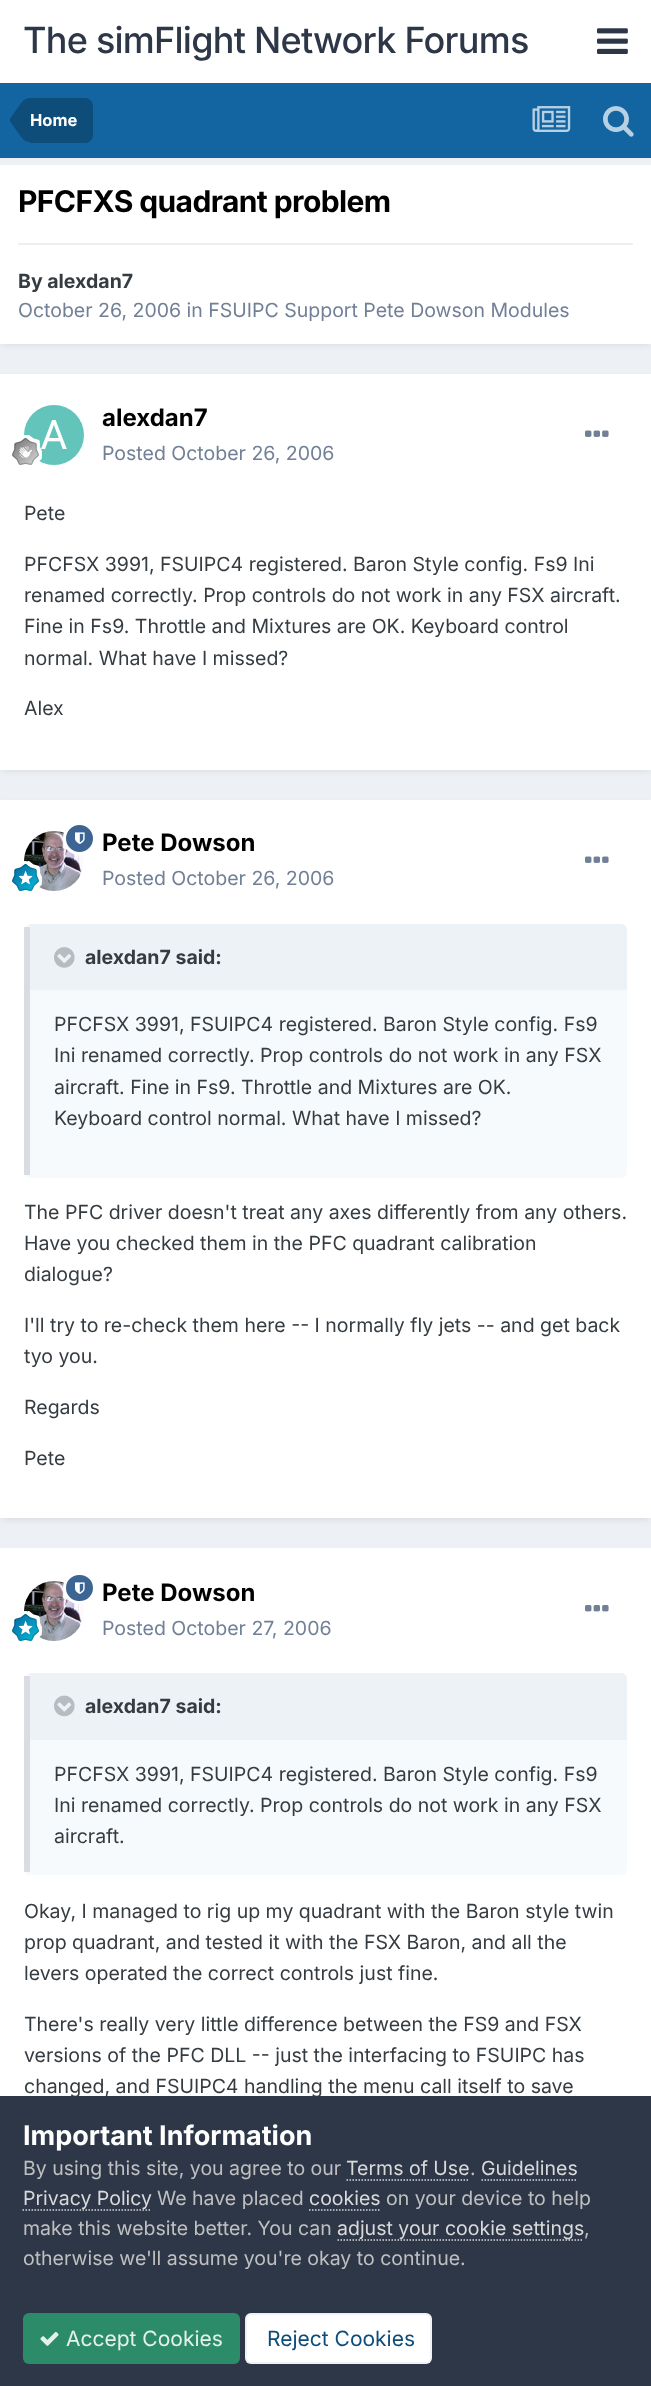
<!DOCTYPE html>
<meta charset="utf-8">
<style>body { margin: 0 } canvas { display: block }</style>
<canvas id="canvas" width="651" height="2386"></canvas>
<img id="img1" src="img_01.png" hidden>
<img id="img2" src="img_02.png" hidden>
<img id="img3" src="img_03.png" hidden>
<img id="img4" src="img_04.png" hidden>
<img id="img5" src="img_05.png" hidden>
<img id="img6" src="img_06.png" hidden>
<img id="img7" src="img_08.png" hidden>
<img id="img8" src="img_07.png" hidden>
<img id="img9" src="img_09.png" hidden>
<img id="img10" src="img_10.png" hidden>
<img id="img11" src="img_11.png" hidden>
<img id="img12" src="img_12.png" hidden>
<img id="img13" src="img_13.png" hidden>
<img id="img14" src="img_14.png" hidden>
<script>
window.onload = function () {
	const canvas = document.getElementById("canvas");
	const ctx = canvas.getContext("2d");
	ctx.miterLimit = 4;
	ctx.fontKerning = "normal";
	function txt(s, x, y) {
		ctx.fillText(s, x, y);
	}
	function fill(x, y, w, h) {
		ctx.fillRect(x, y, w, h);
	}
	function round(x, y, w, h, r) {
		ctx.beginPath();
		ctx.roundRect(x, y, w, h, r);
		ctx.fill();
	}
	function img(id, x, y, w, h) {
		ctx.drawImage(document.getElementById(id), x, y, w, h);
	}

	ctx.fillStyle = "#EDF0F4";
	fill(0, 0, 651, 2386);
	ctx.fillStyle = "#FFFFFF";
	fill(0, 0, 651, 83);
	img("img1", 597, 28, 31, 26);
	ctx.fillStyle = "#1265A1";
	fill(0, 83, 651, 75);
	ctx.fillStyle = "#0E4C79";
	ctx.beginPath();
	ctx.roundRect(30, 98, 63, 45, [0, 8, 8, 0]);
	ctx.fill();
	ctx.beginPath();
	ctx.moveTo(30, 120);
	ctx.lineTo(30, 142);
	ctx.bezierCurveTo(27, 142, 24.5, 141, 22, 138);
	ctx.lineTo(10.5, 122);
	ctx.lineTo(10, 120);
	ctx.closePath();
	ctx.moveTo(30, 120);
	ctx.lineTo(10, 120);
	ctx.lineTo(10.5, 118);
	ctx.lineTo(22, 102);
	ctx.bezierCurveTo(24.5, 99, 27, 98, 30, 98);
	ctx.closePath();
	ctx.fill();
	img("img2", 532, 106, 39, 26);
	img("img3", 603, 106, 31, 31);
	ctx.fillStyle = "rgba(45, 55, 72, 0.1)";
	ctx.filter = "blur(3px)";
	ctx.beginPath();
	ctx.rect(2, 170, 648, 175);
	ctx.fill();
	ctx.filter = "none";
	ctx.fillStyle = "#FFFFFF";
	fill(0, 165, 651, 179);
	ctx.fillStyle = "#EFEFF0";
	fill(18, 243, 615, 2);
	ctx.fillStyle = "rgba(45, 55, 72, 0.1)";
	ctx.filter = "blur(3px)";
	ctx.beginPath();
	ctx.rect(2, 378, 648, 393);
	ctx.fill();
	ctx.filter = "none";
	ctx.fillStyle = "#FFFFFF";
	fill(0, 374, 651, 396);
	img("img4", 24, 405, 60, 60);
	img("img5", 12, 435, 30, 30);
	img("img6", 585, 430, 24, 7);
	ctx.fillStyle = "rgba(45, 55, 72, 0.1)";
	ctx.filter = "blur(3px)";
	ctx.beginPath();
	ctx.rect(2, 804, 648, 716);
	ctx.fill();
	ctx.filter = "none";
	ctx.fillStyle = "#FFFFFF";
	fill(0, 800, 651, 718);
	img("img7", 24, 831, 60, 60);
	ctx.fillStyle = "#3D6594";
	ctx.beginPath();
	ctx.arc(79.5, 838.5, 15, 0, Math.PI * 2);
	ctx.fill();
	ctx.strokeStyle = "#FFFFFF";
	ctx.lineWidth = 3;
	ctx.stroke();
	img("img8", 75, 832, 10, 12);
	img("img9", 12, 861, 30, 30);
	img("img6", 585, 856, 24, 7);
	ctx.fillStyle = "#F7FAFC";
	round(24, 924, 603, 254, 6);
	ctx.fillStyle = "rgba(45, 55, 72, 0.15)";
	fill(24, 927, 6, 248);
	ctx.fillStyle = "#EDF2F7";
	ctx.beginPath();
	ctx.roundRect(30, 924, 597, 66, [0, 6, 0, 0]);
	ctx.fill();
	img("img10", 54, 947, 21, 21);
	ctx.fillStyle = "#FFFFFF";
	fill(0, 1548, 651, 548);
	img("img7", 24, 1581, 60, 60);
	ctx.fillStyle = "#3D6594";
	ctx.beginPath();
	ctx.roundRect(64.5, 1573.5, 30, 29, 14.5);
	ctx.fill();
	ctx.stroke();
	img("img8", 75, 1582, 10, 12);
	img("img11", 12, 1611, 30, 30);
	img("img12", 585, 1605, 24, 7);
	ctx.fillStyle = "#F7FAFC";
	round(24, 1673, 603, 202, 6);
	ctx.fillStyle = "rgba(45, 55, 72, 0.15)";
	fill(24, 1676, 6, 196);
	ctx.fillStyle = "#EDF2F7";
	ctx.beginPath();
	ctx.roundRect(30, 1673, 597, 67, [0, 6, 0, 0]);
	ctx.fill();
	img("img13", 54, 1695, 21, 22);
	ctx.letterSpacing = "-0.75px";
	ctx.font = "500 36px Inter";
	ctx.fillStyle = "#2D3748";
	txt("The simFlight Network Forums", 23, 53);
	ctx.letterSpacing = "0px";
	ctx.font = "bold 16.5px Inter";
	ctx.fillStyle = "#FFFFFF";
	txt("Home", 30, 126);
	ctx.letterSpacing = "-0.6px";
	ctx.font = "bold 30px Inter";
	ctx.fillStyle = "#000000";
	txt("PFCFXS quadrant problem", 18, 212);
	ctx.letterSpacing = "0px";
	ctx.font = "bold 19.5px Inter";
	ctx.fillStyle = "#353C41";
	txt("By alexdan7", 18, 288);
	ctx.font = "19.5px Inter";
	ctx.fillStyle = "#718096";
	txt("October 26, 2006 in FSUIPC Support Pete Dowson Modules", 18, 317);
	ctx.font = "bold 24px Inter";
	ctx.fillStyle = "#000000";
	txt("alexdan7", 102, 426);
	ctx.font = "19.5px Inter";
	ctx.fillStyle = "#718096";
	txt("Posted October 26, 2006", 102, 460);
	ctx.fillStyle = "#353C41";
	txt("Pete", 24, 520);
	txt("PFCFSX 3991, FSUIPC4 registered. Baron Style config. Fs9 Ini", 24, 571);
	txt("renamed correctly. Prop controls do not work in any FSX aircraft.", 24, 602);
	txt("Fine in Fs9. Throttle and Mixtures are OK. Keyboard control", 24, 633);
	txt("normal. What have I missed?", 24, 665);
	txt("Alex", 24, 715);
	ctx.font = "bold 24px Inter";
	ctx.fillStyle = "#000000";
	txt("Pete Dowson", 102, 851);
	ctx.font = "19.5px Inter";
	ctx.fillStyle = "#718096";
	txt("Posted October 26, 2006", 102, 885);
	ctx.font = "bold 19.5px Inter";
	ctx.fillStyle = "#353C41";
	txt("alexdan7 said:", 85, 964);
	ctx.font = "19.5px Inter";
	txt("PFCFSX 3991, FSUIPC4 registered. Baron Style config. Fs9", 54, 1031);
	txt("Ini renamed correctly. Prop controls do not work in any FSX", 54, 1062);
	txt("aircraft. Fine in Fs9. Throttle and Mixtures are OK.", 54, 1094);
	txt("Keyboard control normal. What have I missed?", 54, 1125);
	txt("The PFC driver doesn't treat any axes differently from any others.", 24, 1219);
	txt("Have you checked them in the PFC quadrant calibration", 24, 1250);
	txt("dialogue?", 24, 1281);
	txt("I'll try to re-check them here -- I normally fly jets -- and get back", 24, 1332);
	txt("tyo you.", 24, 1363);
	txt("Regards", 24, 1414);
	txt("Pete", 24, 1465);
	ctx.font = "bold 24px Inter";
	ctx.fillStyle = "#000000";
	txt("Pete Dowson", 102, 1601);
	ctx.font = "19.5px Inter";
	ctx.fillStyle = "#718096";
	txt("Posted October 27, 2006", 102, 1635);
	ctx.font = "bold 19.5px Inter";
	ctx.fillStyle = "#353C41";
	txt("alexdan7 said:", 85, 1713);
	ctx.font = "19.5px Inter";
	txt("PFCFSX 3991, FSUIPC4 registered. Baron Style config. Fs9", 54, 1781);
	txt("Ini renamed correctly. Prop controls do not work in any FSX", 54, 1812);
	txt("aircraft.", 54, 1843);
	txt("Okay, I managed to rig up my quadrant with the Baron style twin", 24, 1918);
	txt("prop quadrant, and tested it with the FSX Baron, and all the", 24, 1949);
	txt("levers operated the correct controls just fine.", 24, 1980);
	txt("There's really very little difference between the FS9 and FSX", 24, 2031);
	txt("versions of the PFC DLL -- just the interfacing to FSUIPC has", 24, 2062);
	txt("changed, and FSUIPC4 handling the menu call itself to save", 24, 2093);
	ctx.fillStyle = "#2D3748";
	fill(0, 2096, 651, 290);
	ctx.font = "bold 27px Inter";
	ctx.fillStyle = "#FFFFFF";
	txt("Important Information", 23, 2145);
	ctx.font = "19.5px Inter";
	ctx.fillStyle = "#C0C0C0";
	txt("By using this site, you agree to our", 23, 2175);
	ctx.fillStyle = "#DADADA";
	txt("Terms of Use", 346, 2175);
	ctx.beginPath();
	ctx.moveTo(346.5, 2180);
	ctx.lineTo(469.5, 2180);
	ctx.strokeStyle = "#DADADA";
	ctx.lineWidth = 1.5;
	ctx.setLineDash([1.5, 1.5]);
	ctx.stroke();
	ctx.fillStyle = "#C0C0C0";
	txt(".", 470, 2175);
	ctx.fillStyle = "#DADADA";
	txt("Guidelines", 481, 2175);
	ctx.beginPath();
	ctx.moveTo(481.5, 2180);
	ctx.lineTo(577.5, 2180);
	ctx.stroke();
	ctx.beginPath();
	ctx.moveTo(22.5, 2210);
	ctx.lineTo(151.5, 2210);
	ctx.stroke();
	txt("Privacy Policy", 23, 2205);
	ctx.fillStyle = "#C0C0C0";
	txt("We have placed", 157, 2205);
	ctx.fillStyle = "#DADADA";
	txt("cookies", 309, 2205);
	ctx.beginPath();
	ctx.moveTo(309, 2210);
	ctx.lineTo(381, 2210);
	ctx.stroke();
	ctx.fillStyle = "#C0C0C0";
	txt("on your device to help", 386, 2205);
	txt("make this website better. You can", 23, 2235);
	ctx.beginPath();
	ctx.moveTo(337.5, 2240);
	ctx.lineTo(583.5, 2240);
	ctx.stroke();
	ctx.fillStyle = "#DADADA";
	txt("adjust your cookie settings", 337, 2235);
	ctx.fillStyle = "#C0C0C0";
	txt(",", 584, 2235);
	txt("otherwise we'll assume you're okay to continue.", 23, 2265);
	ctx.fillStyle = "#2C8C69";
	round(23, 2313, 217, 51, 6);
	img("img14", 40, 2331, 19, 15);
	ctx.font = "21px Inter";
	ctx.fillStyle = "#E3F3EC";
	txt("Accept Cookies", 66, 2346);
	ctx.fillStyle = "#FFFFFF";
	round(245, 2313, 187, 51, 6);
	ctx.beginPath();
	ctx.roundRect(246, 2314, 185, 49, 5);
	ctx.strokeStyle = "rgba(14, 76, 121, 0.07)";
	ctx.lineWidth = 2;
	ctx.setLineDash([]);
	ctx.stroke();
	ctx.fillStyle = "#0E4C79";
	txt("Reject Cookies", 267, 2346);
};
</script>
